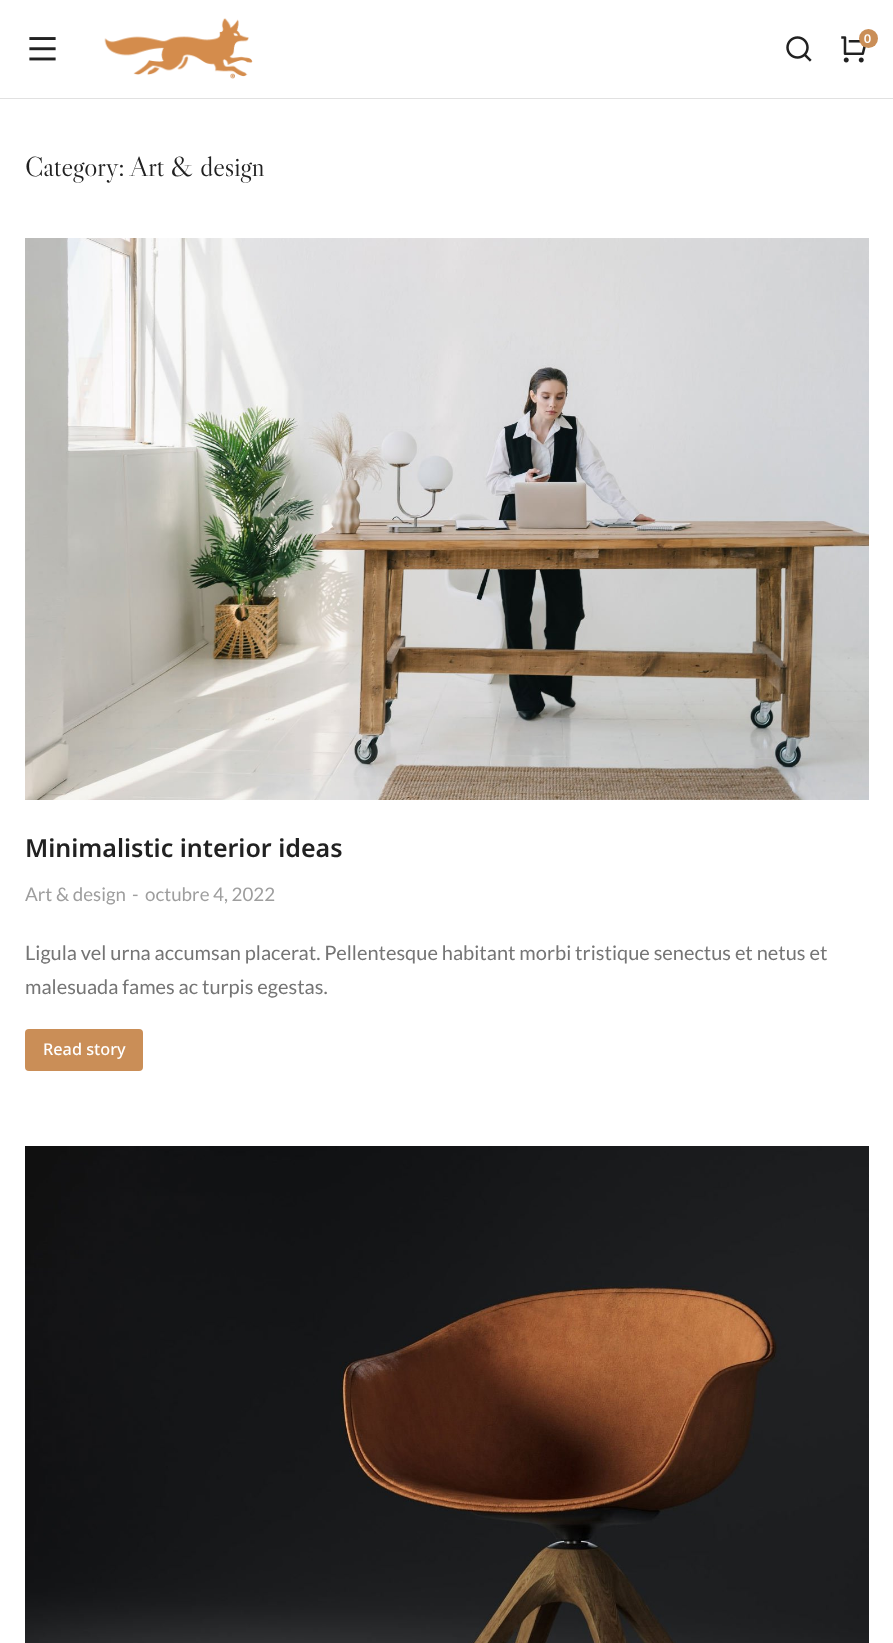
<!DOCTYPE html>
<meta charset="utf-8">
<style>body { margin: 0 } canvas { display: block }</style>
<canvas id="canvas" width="893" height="1643"></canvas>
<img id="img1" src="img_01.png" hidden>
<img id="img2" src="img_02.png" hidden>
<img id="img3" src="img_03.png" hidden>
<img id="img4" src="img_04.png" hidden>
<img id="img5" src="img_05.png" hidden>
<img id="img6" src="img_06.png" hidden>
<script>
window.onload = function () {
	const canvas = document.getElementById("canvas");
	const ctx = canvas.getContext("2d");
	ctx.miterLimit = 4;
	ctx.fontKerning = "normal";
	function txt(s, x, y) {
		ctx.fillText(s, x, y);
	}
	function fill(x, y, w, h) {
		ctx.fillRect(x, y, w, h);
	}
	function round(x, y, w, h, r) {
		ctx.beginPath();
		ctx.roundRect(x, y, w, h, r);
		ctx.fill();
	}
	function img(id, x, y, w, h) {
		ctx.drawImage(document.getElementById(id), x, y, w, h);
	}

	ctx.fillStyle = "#FFFFFF";
	fill(0, 0, 893, 1643);
	ctx.fillStyle = "#E1E1E1";
	fill(0, 98, 893, 1);
	img("img1", 29, 37, 27, 24);
	img("img2", 104, 18, 149, 61);
	img("img3", 786, 36, 26, 26);
	img("img4", 841, 36, 25, 27);
	ctx.fillStyle = "#CA8E57";
	ctx.beginPath();
	ctx.arc(868.5, 38.5, 9.5, 0, Math.PI * 2);
	ctx.fill();
	img("img5", 25, 238, 844, 562);
	round(25, 1029, 118, 42, 4);
	img("img6", 25, 1146, 844, 497);
	ctx.font = "bold 12px Lato";
	ctx.fillStyle = "#FFFFFF";
	txt("0", 864, 43);
	ctx.font = "27.5px Libre Caslon Display";
	ctx.fillStyle = "#212121";
	txt("Category: Art & design", 25, 176);
	ctx.font = "600 25px Noto Sans";
	txt("Minimalistic interior ideas", 25, 857);
	ctx.font = "18.75px Lato";
	ctx.fillStyle = "#9E9E9E";
	txt("Art & design", 25, 901);
	txt("-", 132, 901);
	txt("octubre 4, 2022", 145, 901);
	ctx.font = "20px Lato";
	ctx.fillStyle = "#757575";
	txt("Ligula vel urna accumsan placerat. Pellentesque habitant morbi tristique senectus et netus et", 25, 960);
	txt("malesuada fames ac turpis egestas.", 25, 994);
	ctx.font = "500 16.25px Noto Sans";
	ctx.fillStyle = "#FFFFFF";
	txt("Read story", 43, 1055);
};
</script>
